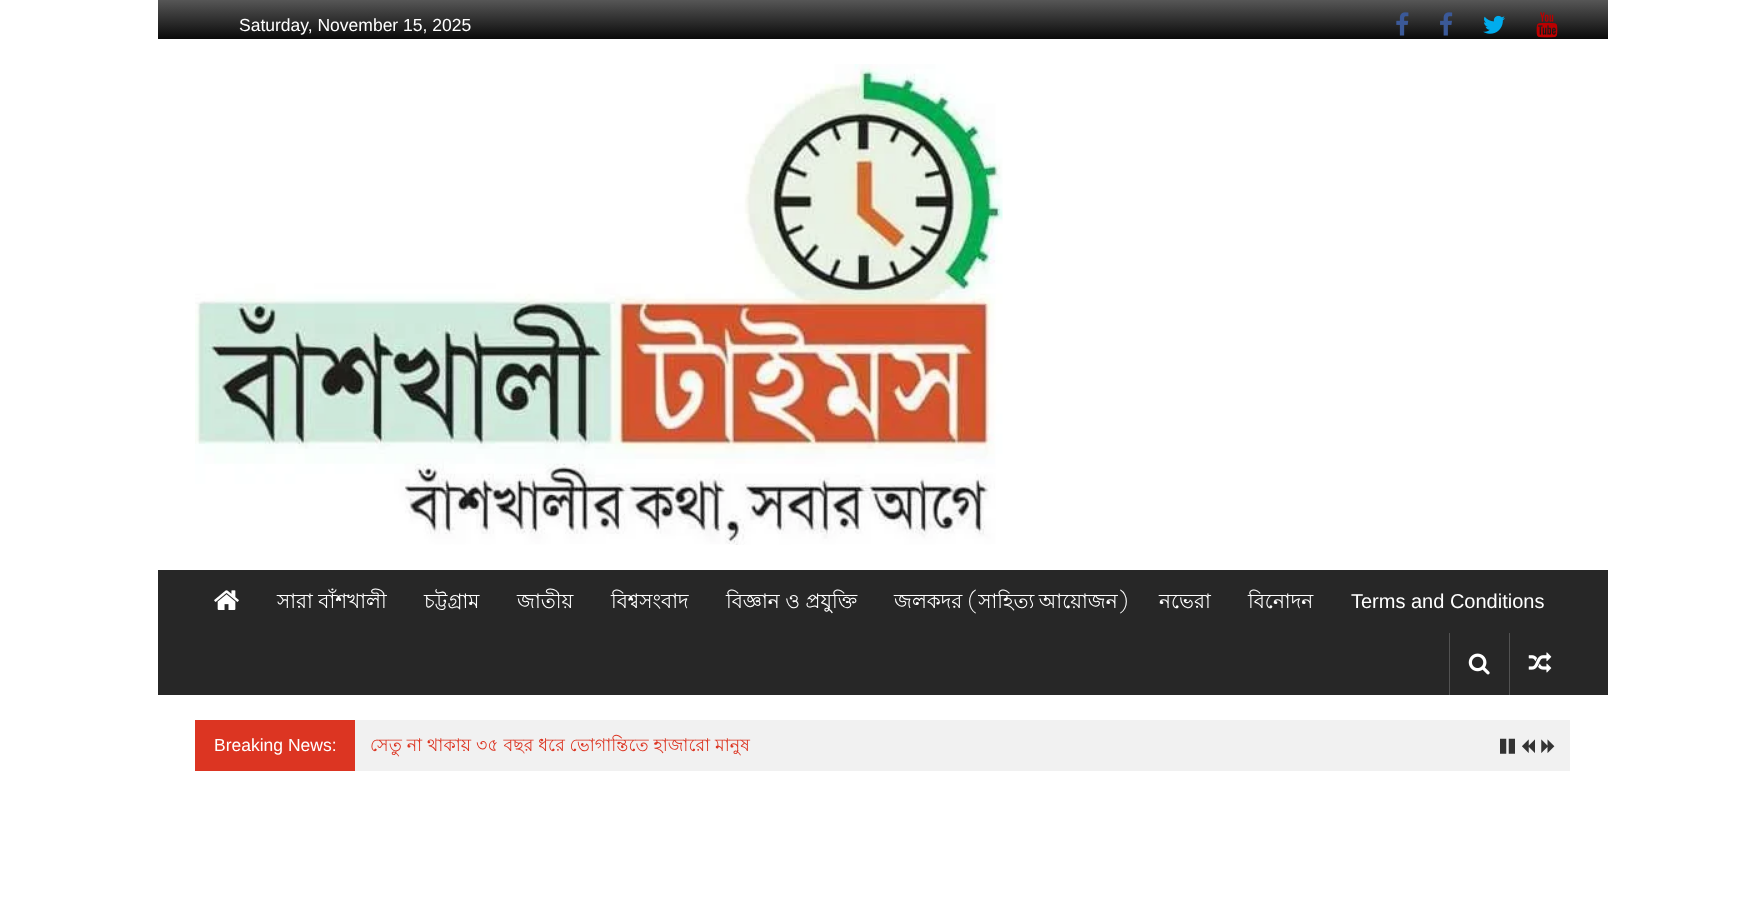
<!DOCTYPE html>
<meta charset="utf-8">
<style>body { margin: 0 } canvas { display: block }</style>
<canvas id="canvas" width="1764" height="915"></canvas>
<img id="img1" src="img_01.png" hidden>
<img id="img2" src="img_02.png" hidden>
<img id="img3" src="img_03.png" hidden>
<img id="img4" src="img_04.png" hidden>
<img id="img5" src="img_05.png" hidden>
<img id="img6" src="img_06.png" hidden>
<img id="img7" src="img_07.png" hidden>
<img id="img8" src="img_08.png" hidden>
<img id="img9" src="img_09.png" hidden>
<img id="img10" src="img_10.png" hidden>
<img id="img11" src="img_11.png" hidden>
<script>
window.onload = function () {
	const canvas = document.getElementById("canvas");
	const ctx = canvas.getContext("2d");
	ctx.miterLimit = 4;
	ctx.fontKerning = "normal";
	function txt(s, x, y) {
		ctx.fillText(s, x, y);
	}
	function fill(x, y, w, h) {
		ctx.fillRect(x, y, w, h);
	}
	function img(id, x, y, w, h) {
		ctx.drawImage(document.getElementById(id), x, y, w, h);
	}
	let gradient;

	ctx.fillStyle = "#FFFFFF";
	fill(0, 0, 1764, 915);
	gradient = ctx.createLinearGradient(883, 0, 883, 39);
	gradient.addColorStop(0, "#565656");
	gradient.addColorStop(1, "#0A0A0A");
	ctx.fillStyle = gradient;
	fill(158, 0, 1450, 39);
	img("img1", 1396, 12, 13, 24);
	img("img2", 1440, 12, 13, 24);
	img("img3", 1483, 15, 22, 19);
	img("img4", 1536, 12, 22, 26);
	img("img5", 195, 64, 808, 481);
	ctx.fillStyle = "#272727";
	fill(158, 570, 1450, 125);
	img("img6", 214, 590, 25, 20);
	ctx.fillStyle = "#525252";
	fill(1449, 633, 1, 62);
	img("img7", 1468, 653, 22, 22);
	fill(1509, 633, 1, 62);
	img("img8", 1528, 652, 24, 21);
	ctx.fillStyle = "#F1F1F1";
	fill(355, 720, 1215, 51);
	ctx.fillStyle = "#DC3522";
	fill(195, 720, 160, 51);
	img("img9", 1500, 738, 15, 16);
	img("img10", 1522, 739, 13, 14);
	img("img11", 1541, 739, 14, 14);
	ctx.font = "17.5px Liberation Sans";
	ctx.fillStyle = "#FFFFFF";
	txt("Saturday, November 15, 2025", 239, 31);
	ctx.font = "20px Lohit Bengali";
	txt("সারা বাঁশখালী", 277, 608);
	txt("চট্টগ্রাম", 424, 608);
	txt("জাতীয়", 517, 608);
	txt("বিশ্বসংবাদ", 611, 608);
	txt("বিজ্ঞান ও প্রযুক্তি", 726, 608);
	ctx.wordSpacing = "-1px";
	txt("জলকদর (সাহিত্য আয়োজন)", 894, 608);
	ctx.wordSpacing = "0px";
	txt("নভেরা", 1159, 608);
	txt("বিনোদন", 1248, 608);
	ctx.font = "20px Liberation Sans";
	txt("Terms and Conditions", 1351, 608);
	ctx.font = "17.5px Liberation Sans";
	txt("Breaking News:", 214, 751);
	ctx.font = "17.5px Lohit Bengali";
	ctx.fillStyle = "#DC3522";
	txt("সেতু না থাকায় ৩৫ বছর ধরে ভোগান্তিতে হাজারো মানুষ", 370, 751);
};
</script>
